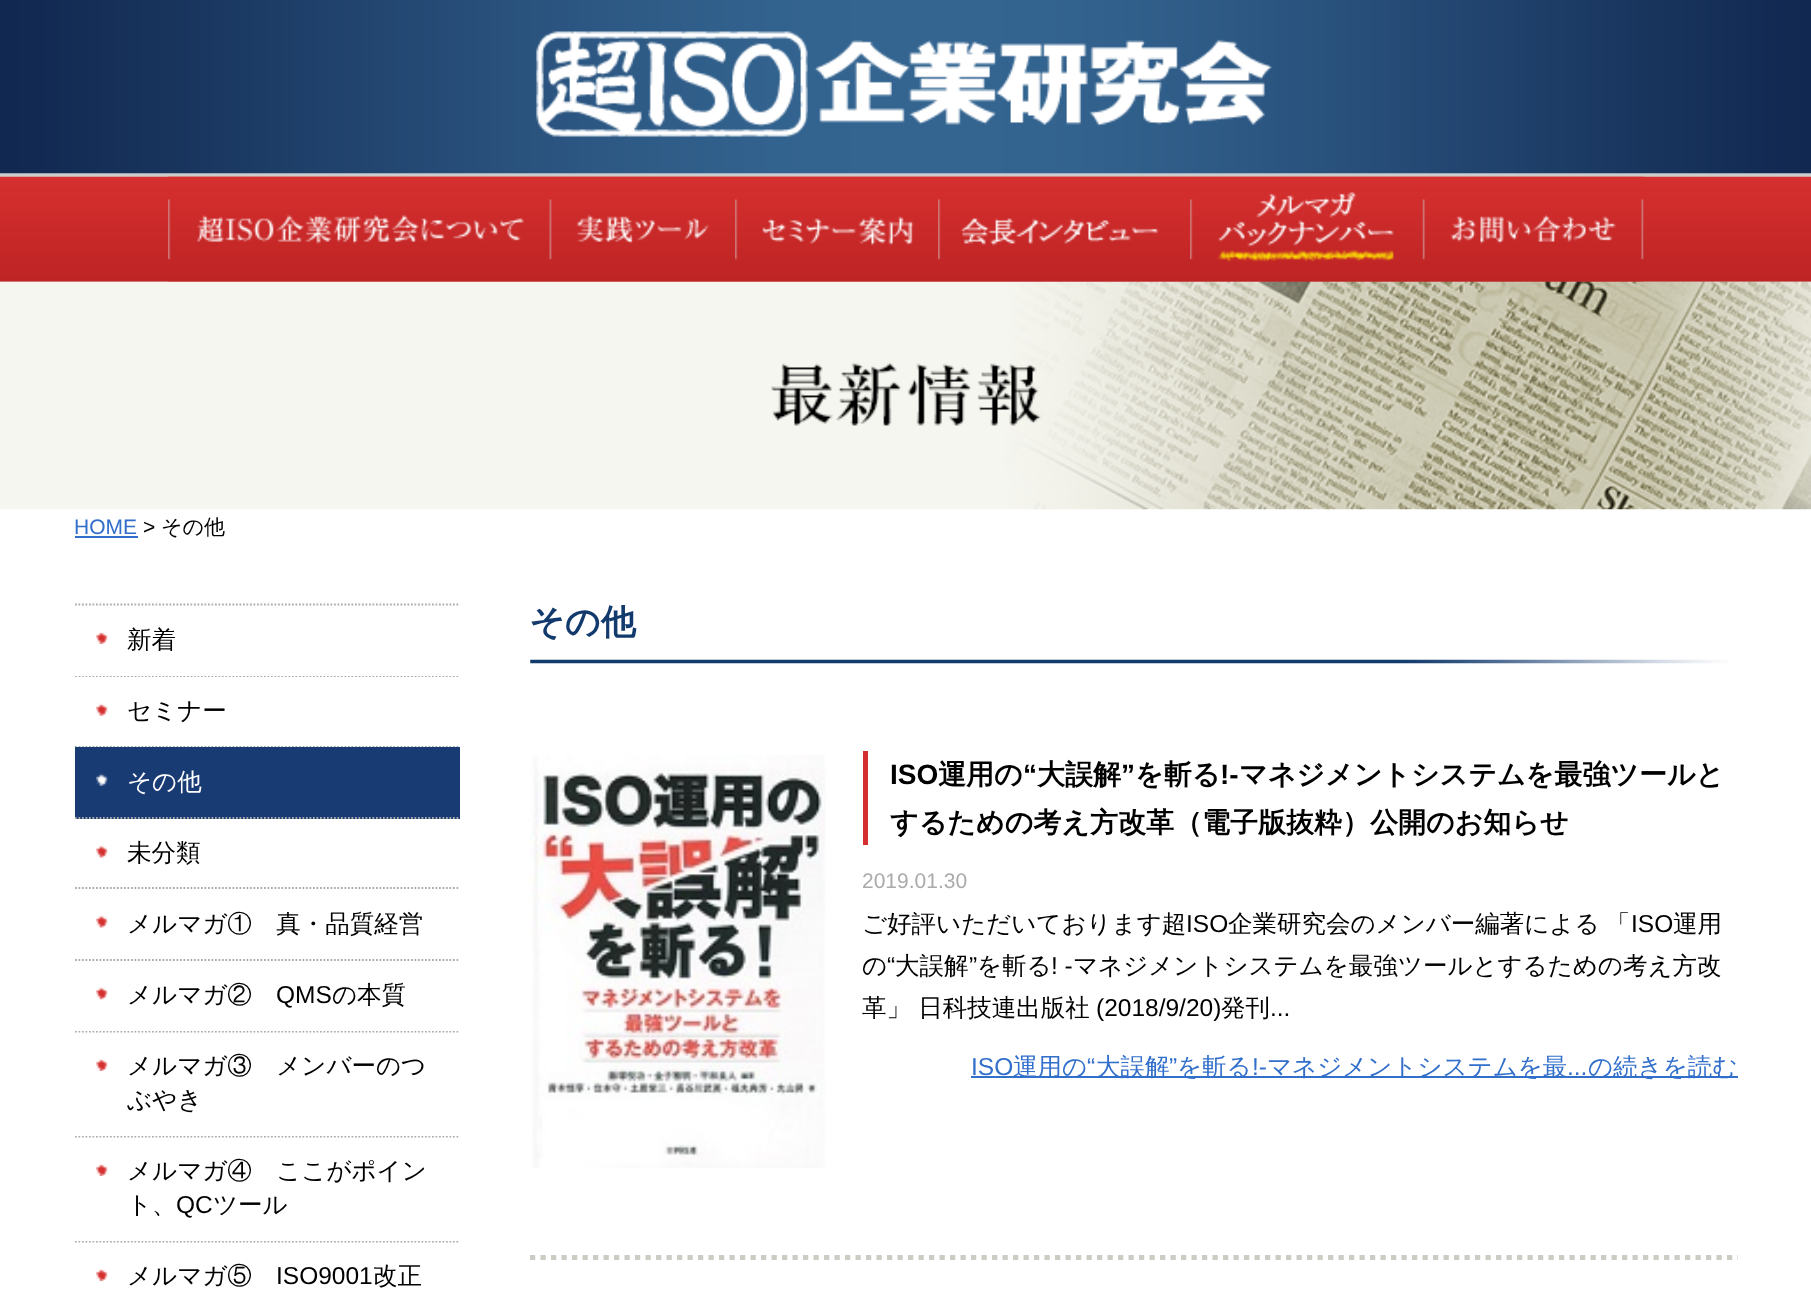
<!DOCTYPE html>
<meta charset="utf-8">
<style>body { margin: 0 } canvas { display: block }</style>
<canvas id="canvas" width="1811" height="1294"></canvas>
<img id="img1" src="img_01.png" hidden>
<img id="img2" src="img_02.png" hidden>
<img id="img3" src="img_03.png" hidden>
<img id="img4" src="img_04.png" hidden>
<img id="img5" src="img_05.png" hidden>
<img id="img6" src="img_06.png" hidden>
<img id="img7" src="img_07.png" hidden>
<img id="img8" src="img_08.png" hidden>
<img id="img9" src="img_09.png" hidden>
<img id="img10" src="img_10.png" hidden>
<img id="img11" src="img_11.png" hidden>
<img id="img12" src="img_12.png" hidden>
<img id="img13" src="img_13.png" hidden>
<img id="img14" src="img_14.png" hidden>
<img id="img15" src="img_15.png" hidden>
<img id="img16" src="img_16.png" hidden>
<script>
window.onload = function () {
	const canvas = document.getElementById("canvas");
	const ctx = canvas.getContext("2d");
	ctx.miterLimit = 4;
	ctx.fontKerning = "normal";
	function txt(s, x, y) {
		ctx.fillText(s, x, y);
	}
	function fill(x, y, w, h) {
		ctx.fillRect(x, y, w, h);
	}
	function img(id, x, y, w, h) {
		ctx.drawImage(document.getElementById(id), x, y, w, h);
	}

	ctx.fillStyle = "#FFFFFF";
	fill(0, 0, 1811, 1294);
	ctx.fillStyle = "#CCCCCC";
	fill(0, 173, 1811, 109);
	img("img1", 0, 0, 1811, 174);
	img("img2", 0, 176, 1811, 106);
	img("img3", 168, 176, 382, 106);
	img("img4", 549, 176, 186, 106);
	img("img5", 735, 176, 203, 106);
	img("img6", 938, 176, 252, 106);
	img("img7", 1190, 176, 233, 106);
	img("img8", 1422, 176, 222, 106);
	img("img9", 0, 281, 1811, 229);
	ctx.fillStyle = "#316FCB";
	fill(75, 536, 63, 2);
	ctx.beginPath();
	ctx.moveTo(75, 604.5);
	ctx.lineTo(460, 604.5);
	ctx.strokeStyle = "#AAAAAA";
	ctx.lineWidth = 1.8;
	ctx.setLineDash([1.75, 1.75]);
	ctx.stroke();
	ctx.beginPath();
	ctx.moveTo(75, 676.5);
	ctx.lineTo(460, 676.5);
	ctx.stroke();
	ctx.fillStyle = "#FFFFFF";
	fill(75, 675, 384, 1);
	img("img10", 96, 631, 12, 13);
	ctx.beginPath();
	ctx.moveTo(75, 746.5);
	ctx.lineTo(460, 746.5);
	ctx.stroke();
	fill(75, 677, 384, 69);
	img("img11", 96, 703, 12, 13);
	ctx.fillStyle = "#193B74";
	fill(75, 747, 385, 72);
	img("img12", 96, 773, 12, 13);
	ctx.beginPath();
	ctx.moveTo(75, 818);
	ctx.lineTo(460, 818);
	ctx.stroke();
	ctx.beginPath();
	ctx.moveTo(75, 888);
	ctx.lineTo(460, 888);
	ctx.stroke();
	img("img13", 96, 845, 12, 13);
	ctx.beginPath();
	ctx.moveTo(75, 960);
	ctx.lineTo(460, 960);
	ctx.stroke();
	img("img13", 96, 915, 12, 13);
	ctx.beginPath();
	ctx.moveTo(75, 1031.5);
	ctx.lineTo(460, 1031.5);
	ctx.stroke();
	ctx.fillStyle = "#FFFFFF";
	fill(75, 1030, 384, 1);
	img("img14", 96, 987, 12, 13);
	ctx.beginPath();
	ctx.moveTo(75, 1136.5);
	ctx.lineTo(460, 1136.5);
	ctx.stroke();
	fill(75, 1135, 384, 1);
	img("img10", 96, 1058, 12, 13);
	ctx.beginPath();
	ctx.moveTo(75, 1241.5);
	ctx.lineTo(460, 1241.5);
	ctx.stroke();
	fill(75, 1240, 384, 1);
	img("img10", 96, 1163, 12, 13);
	img("img10", 96, 1268, 12, 13);
	img("img15", 530, 659, 1198, 5);
	ctx.beginPath();
	ctx.moveTo(530, 1257.5);
	ctx.lineTo(1738, 1257.5);
	ctx.strokeStyle = "#CCCCC5";
	ctx.lineWidth = 5.2;
	ctx.setLineDash([5.25, 5.25]);
	ctx.stroke();
	img("img16", 530, 755, 296, 413);
	ctx.fillStyle = "#D53030";
	fill(863, 751, 5, 94);
	ctx.fillStyle = "#316FCB";
	fill(971, 1076, 767, 2);
	ctx.font = "21px Liberation Sans";
	txt("HOME", 74, 534);
	ctx.fillStyle = "#000000";
	txt(">", 143, 534);
	ctx.font = "500 21px WenQuanYi Zen Hei";
	txt("その他", 161, 534);
	ctx.font = "500 24.5px WenQuanYi Zen Hei";
	txt("新着", 127, 648);
	txt("セミナー", 127, 719);
	ctx.fillStyle = "#FFFFFF";
	txt("その他", 127, 790);
	ctx.fillStyle = "#000000";
	txt("未分類", 127, 861);
	txt("メルマガ①　真・品質経営", 127, 932);
	txt("メルマガ②", 127, 1003);
	ctx.font = "24.5px Liberation Sans";
	txt("QMS", 276, 1003);
	ctx.font = "500 24.5px WenQuanYi Zen Hei";
	txt("の本質", 332, 1003);
	txt("メルマガ③　メンバーのつ", 127, 1074);
	txt("ぶやき", 127, 1108);
	txt("メルマガ④　ここがポイン", 127, 1179);
	txt("ト、", 127, 1213);
	ctx.font = "24.5px Liberation Sans";
	txt("QC", 176, 1213);
	ctx.font = "500 24.5px WenQuanYi Zen Hei";
	txt("ツール", 213, 1213);
	txt("メルマガ⑤", 127, 1284);
	ctx.font = "24.5px Liberation Sans";
	txt("ISO9001", 276, 1284);
	ctx.font = "500 24.5px WenQuanYi Zen Hei";
	txt("改正", 373, 1284);
	ctx.font = "bold 35px WenQuanYi Zen Hei";
	ctx.fillStyle = "#123A6D";
	txt("その他", 529, 634);
	ctx.font = "bold 28px Liberation Sans";
	ctx.fillStyle = "#000000";
	txt("ISO", 890, 784);
	ctx.font = "bold 28px WenQuanYi Zen Hei";
	txt("運用の", 938, 784);
	ctx.font = "bold 28px Liberation Sans";
	txt("“", 1023, 784);
	ctx.font = "bold 28px WenQuanYi Zen Hei";
	txt("大誤解", 1037, 784);
	ctx.font = "bold 28px Liberation Sans";
	txt("”", 1121, 784);
	ctx.font = "bold 28px WenQuanYi Zen Hei";
	txt("を斬る", 1135, 784);
	ctx.font = "bold 28px Liberation Sans";
	txt("!-", 1220, 784);
	ctx.font = "bold 28px WenQuanYi Zen Hei";
	txt("マネジメントシステムを最強ツールと", 1239, 784);
	txt("するための考え方改革（電子版抜粋）公開のお知らせ", 890, 832);
	ctx.font = "21px Liberation Sans";
	ctx.fillStyle = "#AAAAAA";
	txt("2019.01.30", 862, 888);
	ctx.font = "500 24.5px WenQuanYi Zen Hei";
	ctx.fillStyle = "#000000";
	txt("ご好評いただいております超", 862, 932);
	ctx.font = "24.5px Liberation Sans";
	txt("ISO", 1186, 932);
	ctx.wordSpacing = "-1px";
	ctx.font = "500 24.5px WenQuanYi Zen Hei";
	txt("企業研究会のメンバー編著による 「", 1228, 932);
	ctx.wordSpacing = "0px";
	ctx.font = "24.5px Liberation Sans";
	txt("ISO", 1631, 932);
	ctx.font = "500 24.5px WenQuanYi Zen Hei";
	txt("運用", 1673, 932);
	txt("の", 862, 974);
	ctx.font = "24.5px Liberation Sans";
	txt("“", 887, 974);
	ctx.font = "500 24.5px WenQuanYi Zen Hei";
	txt("大誤解", 895, 974);
	ctx.font = "24.5px Liberation Sans";
	txt("”", 969, 974);
	ctx.font = "500 24.5px WenQuanYi Zen Hei";
	txt("を斬る", 977, 974);
	ctx.font = "24.5px Liberation Sans";
	txt("! -", 1051, 974);
	ctx.font = "500 24.5px WenQuanYi Zen Hei";
	txt("マネジメントシステムを最強ツールとするための考え方改", 1073, 974);
	txt("革」 日科技連出版社", 862, 1016);
	ctx.font = "24.5px Liberation Sans";
	txt("(2018/9/20)", 1096, 1016);
	ctx.font = "500 24.5px WenQuanYi Zen Hei";
	txt("発刊", 1221, 1016);
	ctx.font = "24.5px Liberation Sans";
	txt("...", 1270, 1016);
	ctx.fillStyle = "#316FCB";
	txt("ISO", 971, 1075);
	ctx.font = "500 24.5px WenQuanYi Zen Hei";
	txt("運用の", 1013, 1075);
	ctx.font = "24.5px Liberation Sans";
	txt("“", 1087, 1075);
	ctx.font = "500 24.5px WenQuanYi Zen Hei";
	txt("大誤解", 1096, 1075);
	ctx.font = "24.5px Liberation Sans";
	txt("”", 1169, 1075);
	ctx.font = "500 24.5px WenQuanYi Zen Hei";
	txt("を斬る", 1177, 1075);
	ctx.font = "24.5px Liberation Sans";
	txt("!-", 1252, 1075);
	ctx.font = "500 24.5px WenQuanYi Zen Hei";
	txt("マネジメントシステムを最", 1267, 1075);
	ctx.font = "24.5px Liberation Sans";
	txt("...", 1567, 1075);
	ctx.font = "500 24.5px WenQuanYi Zen Hei";
	txt("の続きを読む", 1588, 1075);
};
</script>
